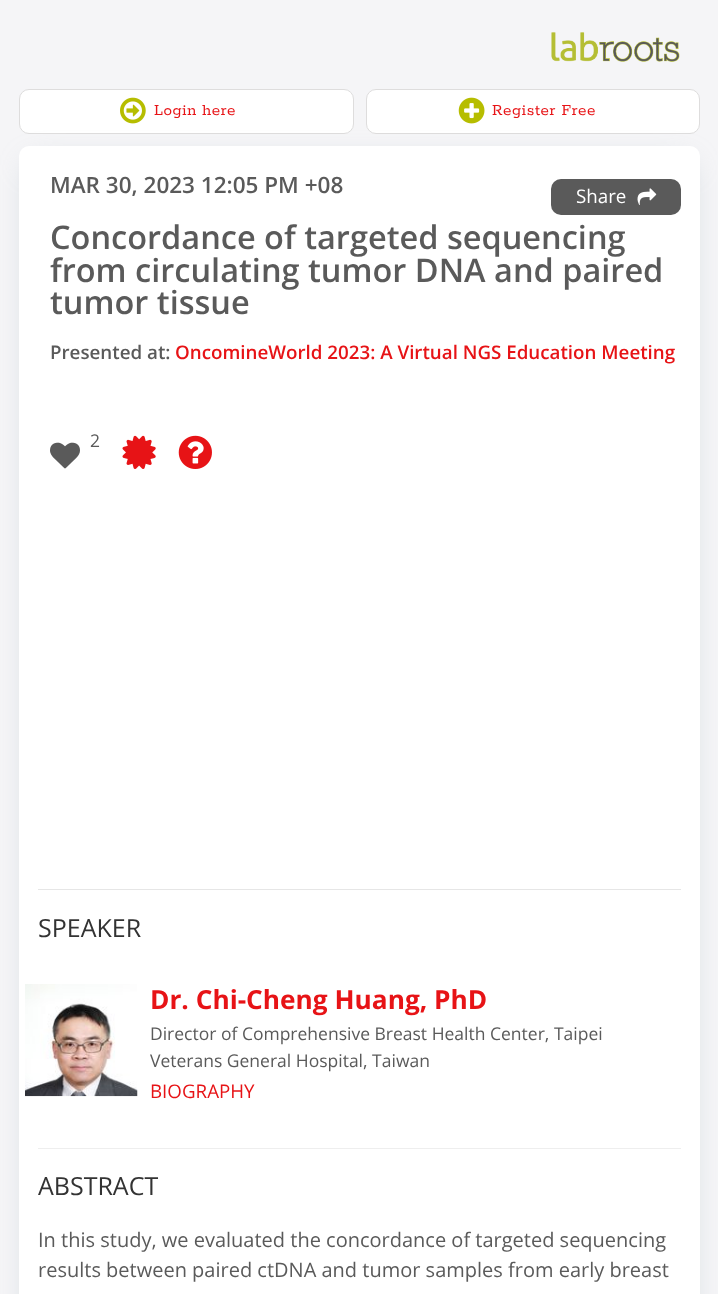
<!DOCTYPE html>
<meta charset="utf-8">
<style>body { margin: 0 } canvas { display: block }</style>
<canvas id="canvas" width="718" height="1294"></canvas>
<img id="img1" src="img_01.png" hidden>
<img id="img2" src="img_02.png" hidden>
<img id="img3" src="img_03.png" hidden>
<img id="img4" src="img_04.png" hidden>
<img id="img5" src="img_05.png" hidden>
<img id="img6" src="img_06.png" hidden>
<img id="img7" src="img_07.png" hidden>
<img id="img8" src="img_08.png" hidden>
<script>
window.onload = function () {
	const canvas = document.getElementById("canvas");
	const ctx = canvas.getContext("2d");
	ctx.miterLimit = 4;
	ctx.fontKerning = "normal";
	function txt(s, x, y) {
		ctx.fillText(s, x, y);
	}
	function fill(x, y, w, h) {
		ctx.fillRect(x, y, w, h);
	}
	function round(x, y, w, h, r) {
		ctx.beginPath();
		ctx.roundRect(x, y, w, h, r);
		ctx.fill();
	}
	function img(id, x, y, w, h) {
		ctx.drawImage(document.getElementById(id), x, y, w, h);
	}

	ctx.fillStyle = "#F5F5F7";
	fill(0, 0, 718, 1294);
	img("img1", 551, 32, 129, 30);
	ctx.fillStyle = "#FFFFFF";
	ctx.beginPath();
	ctx.roundRect(19.5, 89.5, 334, 44, 9.5);
	ctx.fill();
	ctx.strokeStyle = "#DEDDDD";
	ctx.stroke();
	img("img2", 120, 97, 26, 27);
	ctx.beginPath();
	ctx.roundRect(366.5, 89.5, 333, 44, 9.5);
	ctx.fill();
	ctx.stroke();
	img("img3", 458, 97, 27, 27);
	ctx.fillStyle = "rgba(150, 170, 180, 0.5)";
	ctx.filter = "blur(15.5px)";
	ctx.beginPath();
	ctx.rect(31, 165, 657, 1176);
	ctx.fill();
	ctx.filter = "none";
	ctx.fillStyle = "#FFFFFF";
	round(19, 146, 681, 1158, 10);
	ctx.fillStyle = "#5A5A5A";
	round(551, 179, 130, 36, 10);
	img("img4", 637, 188, 20, 17);
	img("img5", 50, 442, 30, 27);
	img("img6", 122, 435, 34, 34);
	img("img7", 178, 435, 34, 34);
	ctx.fillStyle = "#E6E6E6";
	fill(38, 889, 643, 1);
	img("img8", 25, 984, 113, 113);
	ctx.fillStyle = "#EEEEEE";
	fill(38, 1148, 643, 1);
	ctx.letterSpacing = "0.6px";
	ctx.font = "600 17px Rokkitt";
	ctx.fillStyle = "#E71316";
	txt("Login here", 154, 115);
	txt("Register Free", 492, 115);
	ctx.letterSpacing = "0px";
	ctx.font = "600 22.5px Open Sans";
	ctx.fillStyle = "#5A5A5A";
	txt("MAR 30, 2023 12:05 PM +08", 50, 193);
	ctx.font = "18.75px Open Sans";
	ctx.fillStyle = "#FFFFFF";
	txt("Share", 576, 203);
	ctx.font = "600 32.5px Open Sans";
	ctx.fillStyle = "#5A5A5A";
	txt("Concordance of targeted sequencing", 50, 249);
	txt("from circulating tumor DNA and paired", 50, 282);
	txt("tumor tissue", 50, 314);
	ctx.font = "600 18.75px Open Sans";
	txt("Presented at:", 50, 359);
	ctx.fillStyle = "#E71316";
	txt("OncomineWorld 2023: A Virtual NGS Education Meeting", 175, 359);
	ctx.font = "17.5px Open Sans";
	ctx.fillStyle = "#5A5A5A";
	txt("2", 90, 447);
	ctx.font = "25px Open Sans";
	ctx.fillStyle = "#333333";
	txt("SPEAKER", 38, 937);
	ctx.font = "bold 26.25px Open Sans";
	ctx.fillStyle = "#E71316";
	txt("Dr. Chi-Cheng Huang, PhD", 150, 1009);
	ctx.font = "17.5px Open Sans";
	ctx.fillStyle = "#5A5A5A";
	txt("Director of Comprehensive Breast Health Center, Taipei", 150, 1040);
	txt("Veterans General Hospital, Taiwan", 150, 1067);
	ctx.font = "18.75px Open Sans";
	ctx.fillStyle = "#E71316";
	txt("BIOGRAPHY", 150, 1098);
	ctx.font = "25px Open Sans";
	ctx.fillStyle = "#333333";
	txt("ABSTRACT", 38, 1195);
	ctx.font = "20px Open Sans";
	ctx.fillStyle = "#5A5A5A";
	txt("In this study, we evaluated the concordance of targeted sequencing", 38, 1247);
	txt("results between paired ctDNA and tumor samples from early breast", 38, 1277);
};
</script>
